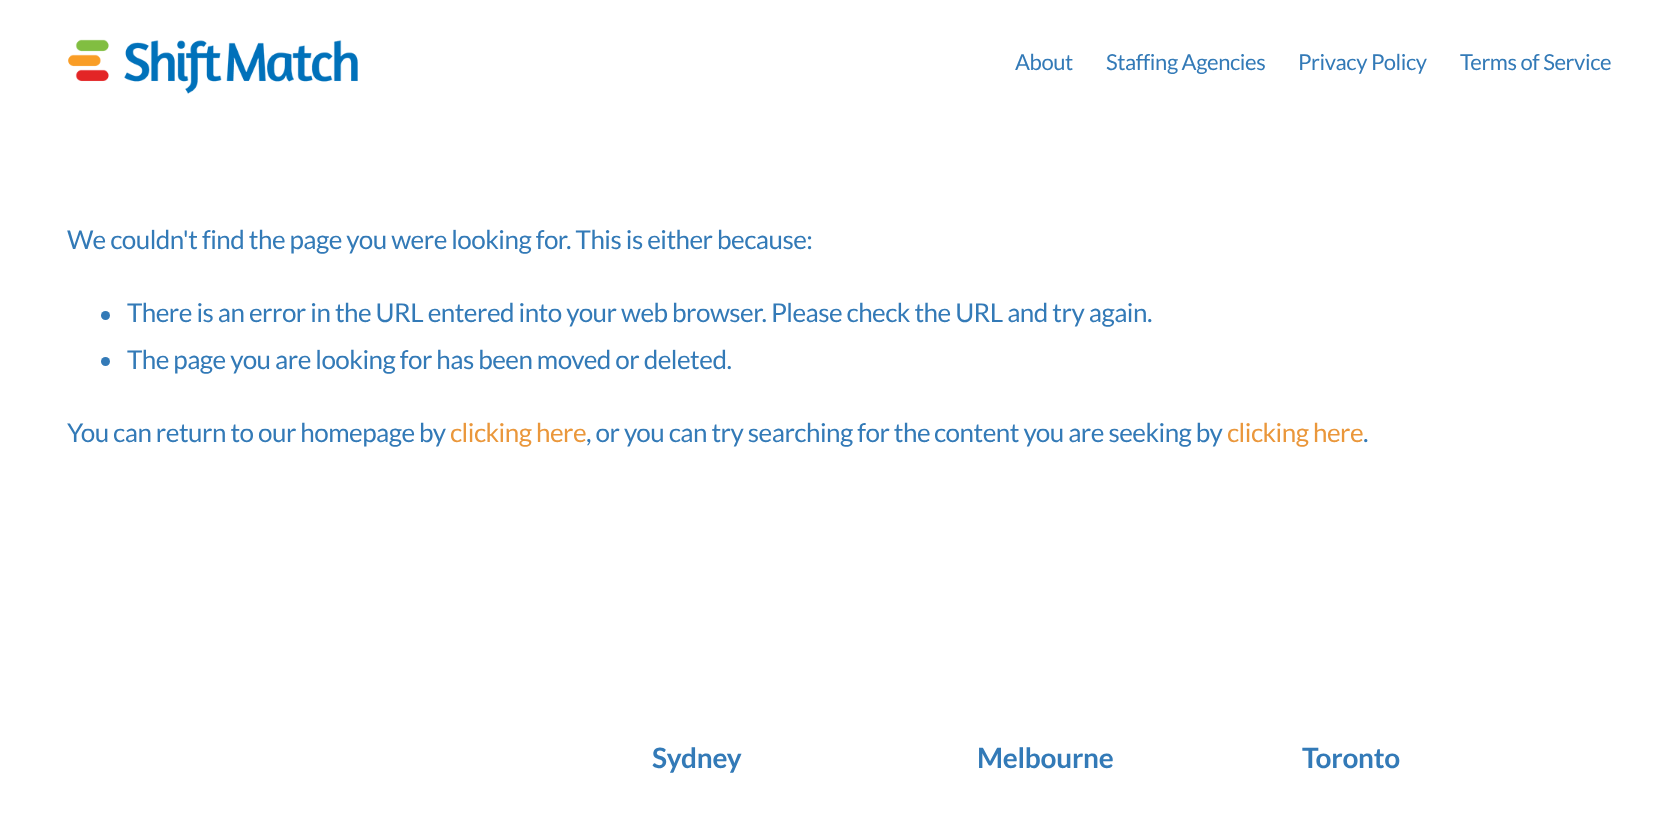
<!DOCTYPE html>
<meta charset="utf-8">
<style>body { margin: 0 } canvas { display: block }</style>
<canvas id="canvas" width="1676" height="829"></canvas>
<img id="img1" src="img_01.png" hidden>
<script>
window.onload = function () {
	const canvas = document.getElementById("canvas");
	const ctx = canvas.getContext("2d");
	ctx.miterLimit = 4;
	ctx.fontKerning = "normal";
	function txt(s, x, y) {
		ctx.fillText(s, x, y);
	}
	function fill(x, y, w, h) {
		ctx.fillRect(x, y, w, h);
	}
	function img(id, x, y, w, h) {
		ctx.drawImage(document.getElementById(id), x, y, w, h);
	}

	ctx.fillStyle = "#FFFFFF";
	fill(0, 0, 1676, 829);
	img("img1", 68, 39, 290, 55);
	ctx.fillStyle = "#337AB7";
	ctx.beginPath();
	ctx.arc(105.5, 315.5, 4.5, 0, Math.PI * 2);
	ctx.fill();
	ctx.beginPath();
	ctx.arc(105.5, 361.5, 4.5, 0, Math.PI * 2);
	ctx.fill();
	ctx.letterSpacing = "-0.4px";
	ctx.font = "22px Lato";
	txt("About", 1015, 70);
	txt("Staffing Agencies", 1106, 70);
	txt("Privacy Policy", 1298, 70);
	txt("Terms of Service", 1460, 70);
	ctx.letterSpacing = "-0.52px";
	ctx.font = "26px Lato";
	txt("We couldn't find the page you were looking for. This is either because:", 67, 249);
	txt("There is an error in the URL entered into your web browser. Please check the URL and try again.", 127, 322);
	txt("The page you are looking for has been moved or deleted.", 127, 369);
	txt("You can return to our homepage by", 67, 442);
	ctx.fillStyle = "#EA973B";
	txt("clicking here", 450, 442);
	ctx.fillStyle = "#337AB7";
	txt(", or you can try searching for the", 586, 442);
	txt("content you are seeking by", 934, 442);
	ctx.fillStyle = "#EA973B";
	txt("clicking here", 1227, 442);
	ctx.fillStyle = "#337AB7";
	txt(".", 1363, 442);
	ctx.letterSpacing = "-0.25px";
	ctx.font = "bold 28px Lato";
	txt("Sydney", 652, 768);
	txt("Melbourne", 977, 768);
	txt("Toronto", 1302, 768);
};
</script>
